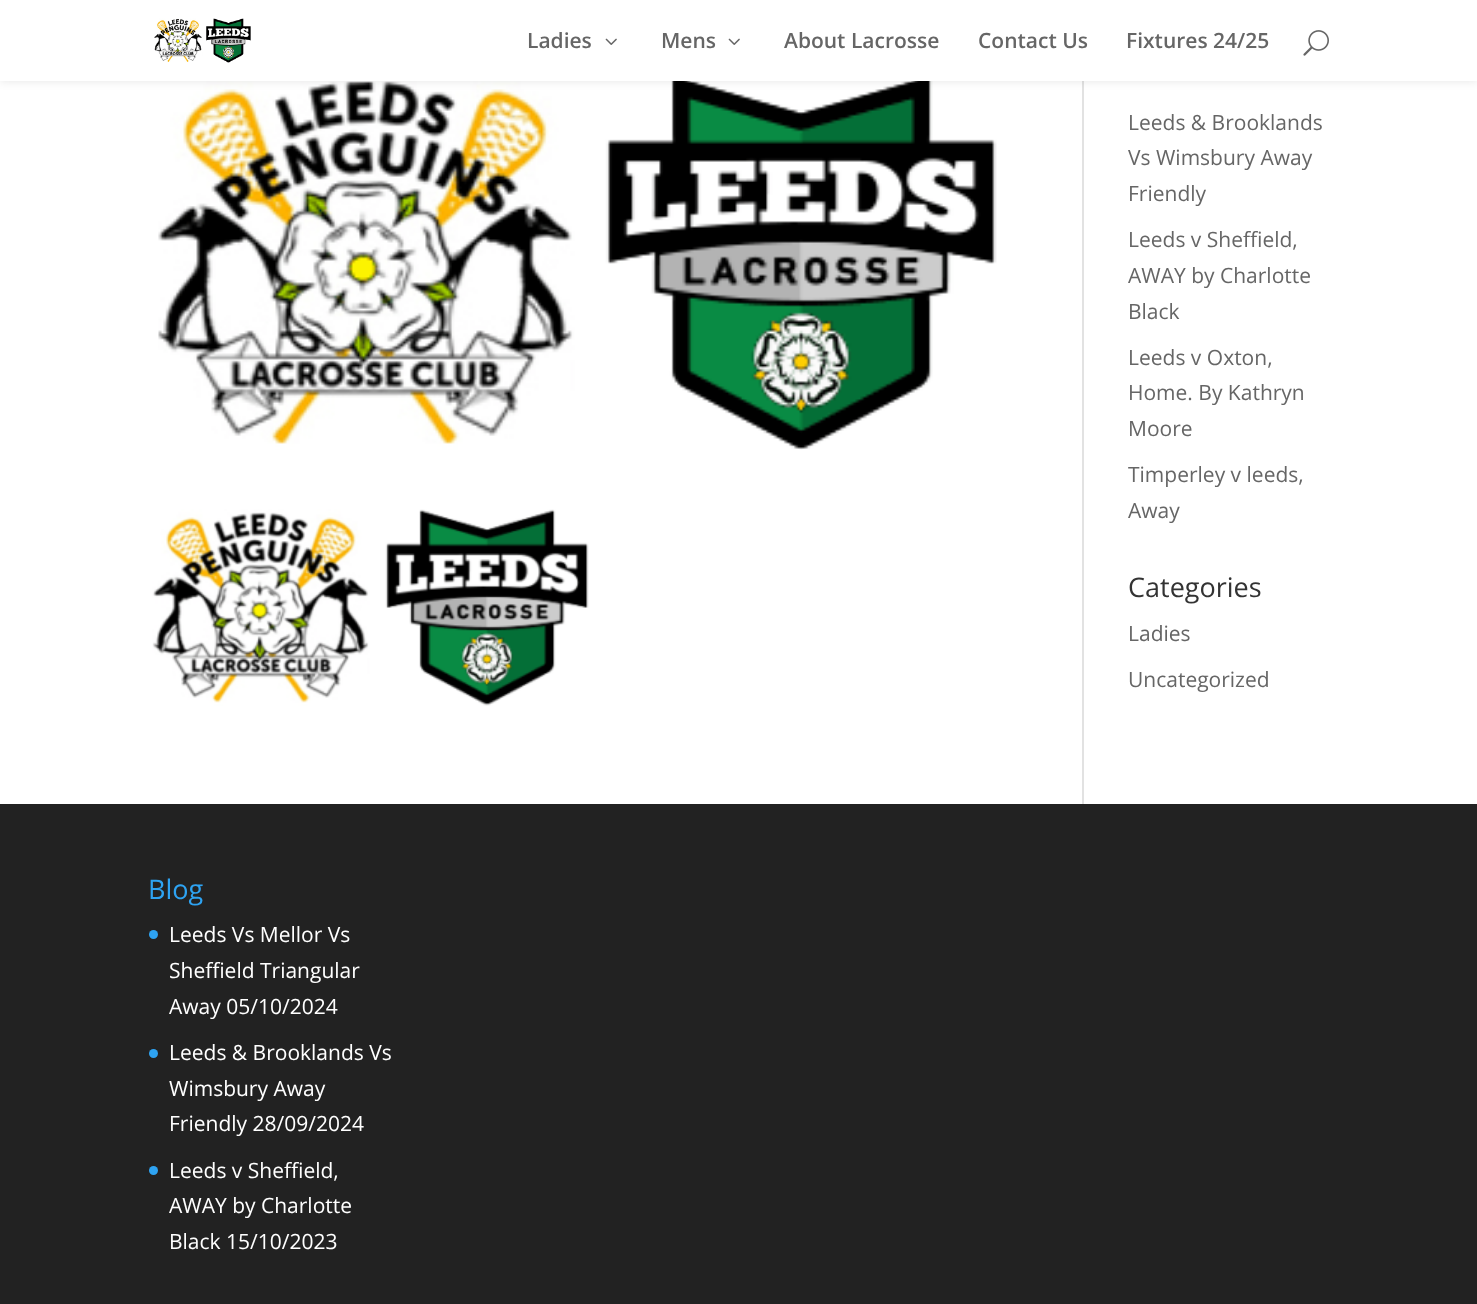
<!DOCTYPE html>
<meta charset="utf-8">
<style>body { margin: 0 } canvas { display: block }</style>
<canvas id="canvas" width="1477" height="1304"></canvas>
<img id="img1" src="img_04.png" hidden>
<img id="img2" src="img_01.png" hidden>
<img id="img3" src="img_02.png" hidden>
<img id="img4" src="img_03.png" hidden>
<img id="img5" src="img_05.png" hidden>
<script>
window.onload = function () {
	const canvas = document.getElementById("canvas");
	const ctx = canvas.getContext("2d");
	ctx.miterLimit = 4;
	ctx.fontKerning = "normal";
	function txt(s, x, y) {
		ctx.fillText(s, x, y);
	}
	function fill(x, y, w, h) {
		ctx.fillRect(x, y, w, h);
	}
	function img(id, x, y, w, h) {
		ctx.drawImage(document.getElementById(id), x, y, w, h);
	}

	ctx.fillStyle = "#FFFFFF";
	fill(0, 0, 1477, 1304);
	ctx.fillStyle = "#E2E2E2";
	fill(1082, 81, 2, 723);
	img("img1", 158, 81, 839, 369);
	ctx.fillStyle = "rgba(0, 0, 0, 0.1)";
	ctx.filter = "blur(5px)";
	ctx.beginPath();
	ctx.rect(0, 0, 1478, 81);
	ctx.fill();
	ctx.filter = "none";
	ctx.fillStyle = "#FFFFFF";
	fill(0, 0, 1477, 81);
	img("img2", 154, 18, 97, 45);
	img("img3", 605, 38, 12, 7);
	img("img3", 728, 38, 12, 7);
	img("img4", 1303, 30, 26, 26);
	img("img5", 152, 509, 437, 197);
	ctx.fillStyle = "#222222";
	fill(0, 804, 1477, 500);
	ctx.fillStyle = "#2EA3F2";
	ctx.beginPath();
	ctx.arc(153.5, 934.5, 4.5, 0, Math.PI * 2);
	ctx.fill();
	ctx.beginPath();
	ctx.arc(153.5, 1053.5, 4.5, 0, Math.PI * 2);
	ctx.fill();
	ctx.beginPath();
	ctx.arc(153.5, 1170.5, 4.5, 0, Math.PI * 2);
	ctx.fill();
	ctx.font = "600 21px Open Sans";
	ctx.fillStyle = "#666666";
	txt("Ladies", 527, 48);
	txt("Mens", 661, 48);
	txt("About Lacrosse", 784, 48);
	txt("Contact Us", 978, 48);
	txt("Fixtures 24/25", 1126, 48);
	ctx.font = "21px Open Sans";
	txt("Leeds & Brooklands", 1128, 130);
	txt("Vs Wimsbury Away", 1128, 165);
	txt("Friendly", 1128, 201);
	txt("Leeds v Sheffield,", 1128, 247);
	txt("AWAY by Charlotte", 1128, 283);
	txt("Black", 1128, 319);
	txt("Leeds v Oxton,", 1128, 365);
	txt("Home. By Kathryn", 1128, 400);
	txt("Moore", 1128, 436);
	txt("Timperley v leeds,", 1128, 482);
	txt("Away", 1128, 518);
	ctx.font = "27px Open Sans";
	ctx.fillStyle = "#333333";
	txt("Categories", 1128, 597);
	ctx.font = "21px Open Sans";
	ctx.fillStyle = "#666666";
	txt("Ladies", 1128, 641);
	txt("Uncategorized", 1128, 687);
	ctx.font = "27px Open Sans";
	ctx.fillStyle = "#2EA3F2";
	txt("Blog", 148, 899);
	ctx.font = "21px Open Sans";
	ctx.fillStyle = "#FFFFFF";
	txt("Leeds Vs Mellor Vs", 169, 942);
	txt("Sheffield Triangular", 169, 978);
	txt("Away 05/10/2024", 169, 1014);
	txt("Leeds & Brooklands Vs", 169, 1060);
	txt("Wimsbury Away", 169, 1096);
	txt("Friendly 28/09/2024", 169, 1131);
	txt("Leeds v Sheffield,", 169, 1178);
	txt("AWAY by Charlotte", 169, 1213);
	txt("Black 15/10/2023", 169, 1249);
};
</script>
